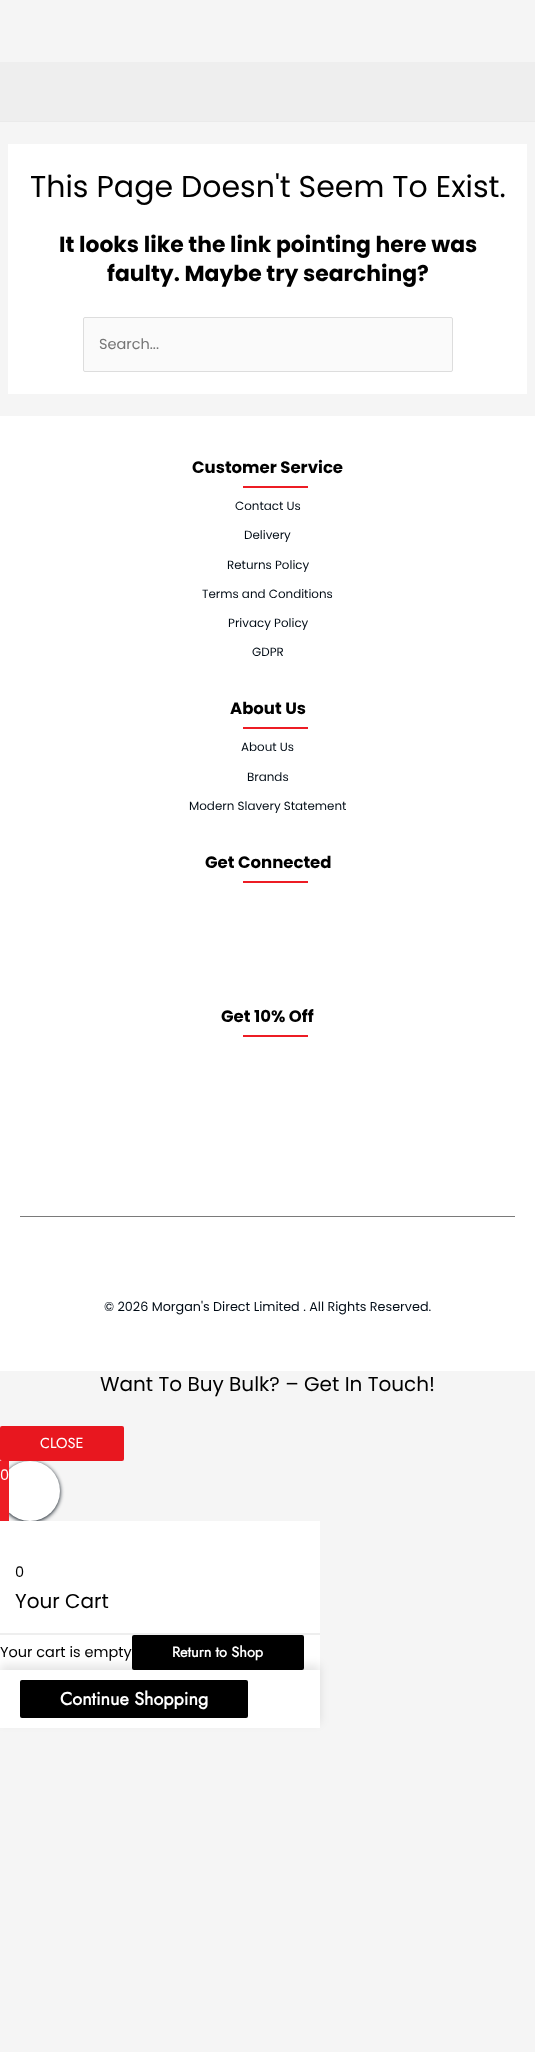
<!DOCTYPE html>
<meta charset="utf-8">
<style>body { margin: 0 } canvas { display: block }</style>
<canvas id="canvas" width="535" height="2052"></canvas>
<script>
window.onload = function () {
	const canvas = document.getElementById("canvas");
	const ctx = canvas.getContext("2d");
	ctx.miterLimit = 4;
	ctx.fontKerning = "normal";
	function txt(s, x, y) {
		ctx.fillText(s, x, y);
	}
	function fill(x, y, w, h) {
		ctx.fillRect(x, y, w, h);
	}
	function round(x, y, w, h, r) {
		ctx.beginPath();
		ctx.roundRect(x, y, w, h, r);
		ctx.fill();
	}

	ctx.fillStyle = "#F5F5F5";
	fill(0, 0, 535, 2052);
	ctx.fillStyle = "#EEEEEE";
	fill(0, 62, 535, 59);
	ctx.fillStyle = "#EAEAEA";
	fill(0, 121, 535, 1);
	ctx.fillStyle = "#FFFFFF";
	fill(8, 144, 519, 250);
	ctx.fillStyle = "#FAFAFA";
	ctx.beginPath();
	ctx.roundRect(83.5, 317.5, 369, 54, 1.5);
	ctx.fill();
	ctx.strokeStyle = "#DDDDDD";
	ctx.stroke();
	ctx.fillStyle = "#FFFFFF";
	fill(0, 416, 535, 955);
	ctx.fillStyle = "#ED1C24";
	fill(243, 486, 65, 2);
	fill(243, 727, 65, 2);
	fill(243, 881, 65, 2);
	fill(243, 1035, 65, 2);
	ctx.fillStyle = "#7A7A7A";
	fill(20, 1216, 495, 1);
	ctx.fillStyle = "#000B15";
	ctx.filter = "blur(2px)";
	ctx.beginPath();
	ctx.roundRect(0, 1462, 60, 60, 30);
	ctx.fill();
	ctx.filter = "none";
	ctx.fillStyle = "#E8171F";
	round(0, 1426, 124, 35, 2);
	ctx.fillStyle = "#FFFFFF";
	ctx.beginPath();
	ctx.arc(30, 1491, 30, 0, Math.PI * 2);
	ctx.fill();
	ctx.fillStyle = "#ED1C24";
	fill(0, 1461, 9, 60);
	ctx.fillStyle = "#FFFFFF";
	fill(0, 1521, 320, 112);
	ctx.fillStyle = "#EEEEEE";
	fill(0, 1633, 320, 2);
	ctx.fillStyle = "#FFFFFF";
	fill(0, 1635, 320, 35);
	ctx.fillStyle = "rgba(0, 0, 0, 0.1)";
	ctx.filter = "blur(5px)";
	ctx.beginPath();
	ctx.rect(0, 1665, 320, 58);
	ctx.fill();
	ctx.filter = "none";
	ctx.fillStyle = "#000000";
	round(132, 1635, 172, 35, 2);
	ctx.fillStyle = "#FFFFFF";
	fill(0, 1670, 320, 58);
	ctx.fillStyle = "#000000";
	round(20, 1680, 228, 38, 2);
	ctx.font = "30px Poppins";
	txt("This Page Doesn't Seem To Exist.", 30, 197);
	ctx.font = "bold 21.9px Poppins";
	txt("It looks like the link pointing here was", 59, 252);
	txt("faulty. Maybe try searching?", 107, 281);
	ctx.font = "14.5px Poppins";
	ctx.fillStyle = "#757575";
	txt("Search...", 99, 349);
	ctx.font = "bold 16.5px Poppins";
	ctx.fillStyle = "#000000";
	txt("Customer Service", 192, 473);
	ctx.font = "11.9px Poppins";
	ctx.fillStyle = "#000B15";
	txt("Contact Us", 235, 510);
	txt("Delivery", 244, 539);
	txt("Returns Policy", 227, 569);
	txt("Terms and Conditions", 202, 598);
	txt("Privacy Policy", 228, 627);
	txt("GDPR", 252, 656);
	ctx.font = "bold 16.5px Poppins";
	ctx.fillStyle = "#000000";
	txt("About Us", 230, 714);
	ctx.font = "11.9px Poppins";
	ctx.fillStyle = "#000B15";
	txt("About Us", 241, 751);
	txt("Brands", 247, 781);
	txt("Modern Slavery Statement", 189, 810);
	ctx.font = "bold 16.5px Poppins";
	ctx.fillStyle = "#000000";
	txt("Get Connected", 205, 868);
	txt("Get 10% Off", 221, 1022);
	ctx.font = "12.75px Poppins";
	ctx.fillStyle = "#000B15";
	txt("© 2026 Morgan's Direct Limited . All Rights Reserved.", 104, 1311);
	ctx.font = "20px Poppins";
	ctx.fillStyle = "#000000";
	txt("Want To Buy Bulk? – Get In Touch!", 100, 1391);
	ctx.font = "14.5px Jost";
	ctx.fillStyle = "#FFFFFF";
	txt("CLOSE", 40, 1448);
	ctx.font = "14.5px Poppins";
	txt("0", 0, 1480);
	ctx.fillStyle = "#000000";
	txt("0", 15, 1577);
	ctx.font = "20px Poppins";
	txt("Your Cart", 15, 1608);
	ctx.font = "14.5px Poppins";
	txt("Your cart is empty", 0, 1657);
	ctx.font = "bold 14.5px Jost";
	ctx.fillStyle = "#FFFFFF";
	txt("Return to Shop", 172, 1657);
	ctx.font = "bold 18px Jost";
	txt("Continue Shopping", 60, 1705);
};
</script>
